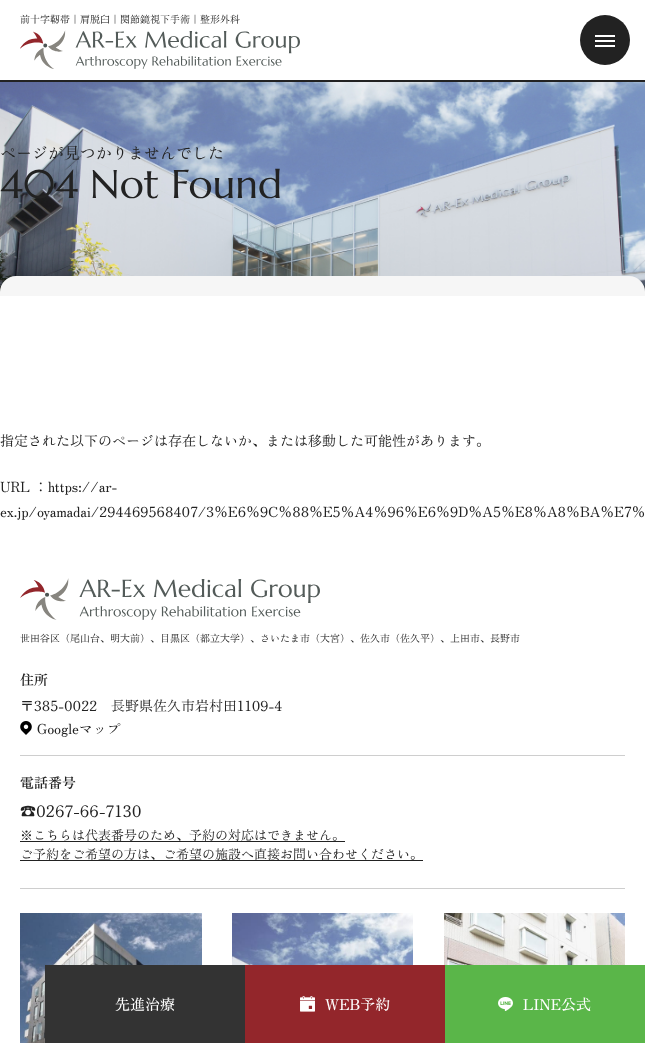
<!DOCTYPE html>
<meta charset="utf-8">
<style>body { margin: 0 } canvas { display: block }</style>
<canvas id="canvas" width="645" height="1043"></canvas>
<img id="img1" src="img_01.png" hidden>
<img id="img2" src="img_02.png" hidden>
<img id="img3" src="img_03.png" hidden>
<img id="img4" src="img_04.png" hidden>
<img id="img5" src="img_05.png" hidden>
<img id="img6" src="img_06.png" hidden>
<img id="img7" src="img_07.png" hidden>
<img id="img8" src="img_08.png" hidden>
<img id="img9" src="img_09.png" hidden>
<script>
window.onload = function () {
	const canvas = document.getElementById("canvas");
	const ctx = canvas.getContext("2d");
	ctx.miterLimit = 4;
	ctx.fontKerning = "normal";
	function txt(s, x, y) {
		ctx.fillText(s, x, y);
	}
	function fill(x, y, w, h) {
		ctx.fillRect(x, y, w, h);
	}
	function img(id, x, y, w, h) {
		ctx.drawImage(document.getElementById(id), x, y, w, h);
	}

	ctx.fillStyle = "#FFFFFF";
	fill(0, 0, 645, 1043);
	ctx.fillStyle = "#222222";
	fill(0, 80, 645, 2);
	img("img1", 20, 30, 280, 39);
	ctx.beginPath();
	ctx.arc(605, 40, 25, 0, Math.PI * 2);
	ctx.fill();
	ctx.fillStyle = "#FFFFFF";
	fill(595, 35, 20, 2);
	fill(595, 40, 20, 2);
	fill(595, 45, 20, 2);
	img("img2", 0, 82, 645, 210);
	ctx.fillStyle = "#F6F6F6";
	ctx.beginPath();
	ctx.roundRect(0, 276, 645, 20, [16, 16, 0, 0]);
	ctx.fill();
	img("img3", 20, 578, 300, 42);
	ctx.fillStyle = "#CECECE";
	fill(20, 888, 605, 1);
	fill(20, 755, 605, 1);
	img("img4", 20, 721, 12, 14);
	ctx.fillStyle = "#222222";
	fill(20, 841, 325, 1);
	fill(20, 860, 403, 1);
	img("img5", 20, 913, 182, 130);
	img("img6", 232, 913, 181, 52);
	img("img7", 444, 913, 181, 52);
	ctx.fillStyle = "#333333";
	fill(45, 965, 200, 78);
	ctx.fillStyle = "#93262B";
	fill(245, 965, 200, 78);
	img("img8", 300, 996, 15, 16);
	ctx.fillStyle = "#5AB649";
	fill(445, 965, 200, 78);
	img("img9", 498, 997, 15, 14);
	ctx.font = "10px Zen Old Mincho";
	ctx.fillStyle = "#222222";
	txt("前十字靭帯｜肩脱臼｜関節鏡視下手術｜整形外科", 20, 23);
	ctx.font = "16px Zen Old Mincho";
	txt("ページが見つかりませんでした", 0, 159);
	ctx.font = "40px Marcellus";
	txt("404 Not Found", 0, 198);
	ctx.font = "14px Zen Old Mincho";
	txt("指定された以下のページは存在しないか、または移動した可能性があります。", 0, 446);
	txt("URL ：https://ar-", 0, 492);
	txt("ex.jp/oyamadai/294469568407/3%E6%9C%88%E5%A4%96%E6%9D%A5%E8%A8%BA%E7%", 0, 517);
	ctx.font = "10px Zen Old Mincho";
	txt("世田谷区（尾山台、明大前）、目黒区（都立大学）、さいたま市（大宮）、佐久市（佐久平）、上田市、長野市", 20, 642);
	ctx.font = "600 14px Zen Old Mincho";
	txt("住所", 20, 685);
	ctx.font = "14px Zen Old Mincho";
	txt("〒385-0022　長野県佐久市岩村田1109-4", 20, 711);
	txt("Googleマップ", 37, 734);
	ctx.font = "600 14px Zen Old Mincho";
	txt("電話番号", 20, 788);
	ctx.font = "16px Zen Old Mincho";
	txt("☎︎0267-66-7130", 20, 817);
	ctx.font = "13px Zen Old Mincho";
	txt("※こちらは代表番号のため、予約の対応はできません。", 20, 840);
	txt("ご予約をご希望の方は、ご希望の施設へ直接お問い合わせください。", 20, 859);
	ctx.font = "500 15px Zen Old Mincho";
	ctx.fillStyle = "#FFFFFF";
	txt("先進治療", 115, 1010);
	txt("WEB予約", 325, 1010);
	txt("LINE公式", 523, 1010);
};
</script>
